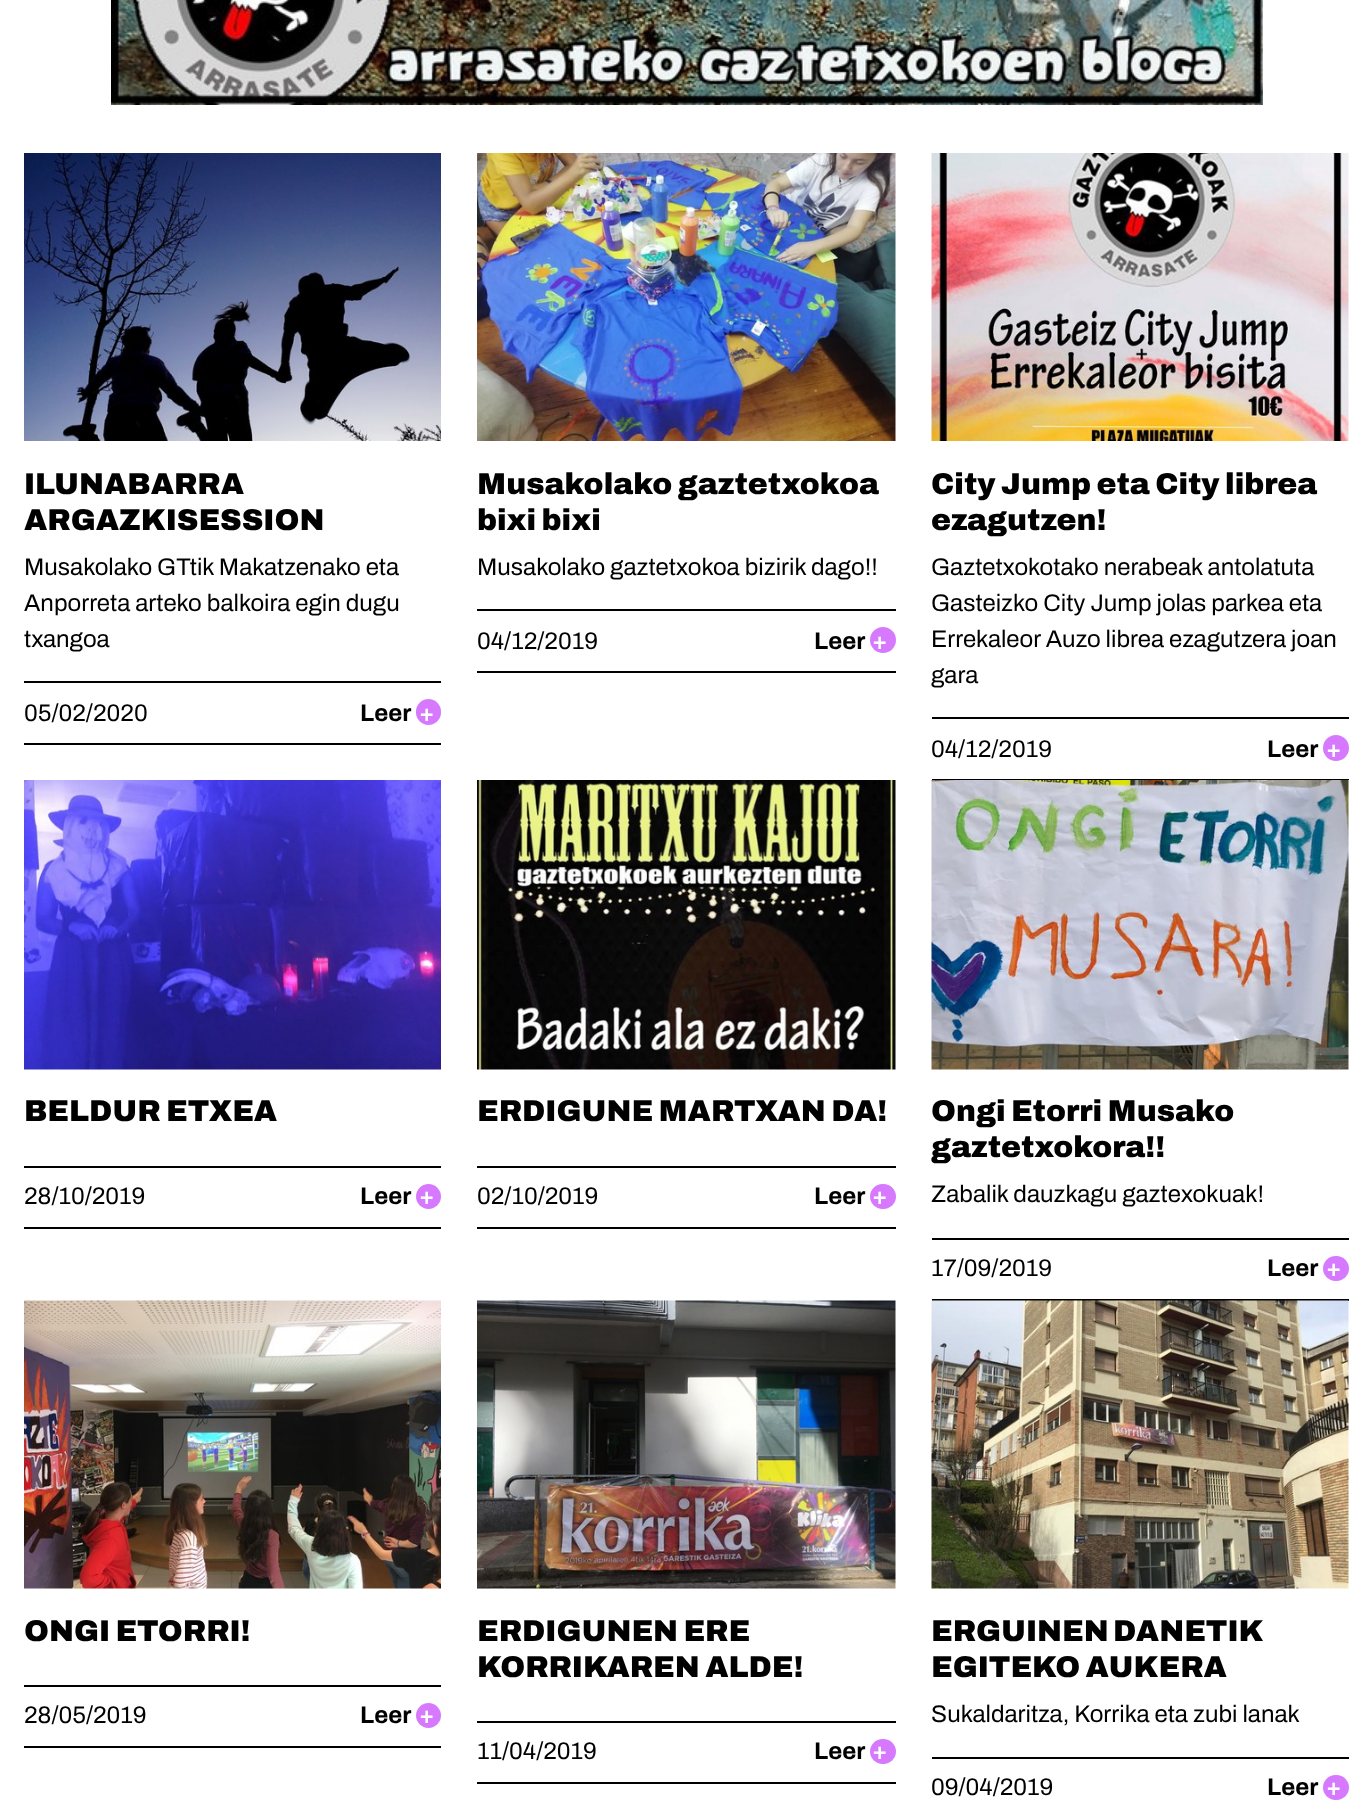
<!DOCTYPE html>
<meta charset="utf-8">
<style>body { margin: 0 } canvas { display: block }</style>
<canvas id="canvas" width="1372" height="1808"></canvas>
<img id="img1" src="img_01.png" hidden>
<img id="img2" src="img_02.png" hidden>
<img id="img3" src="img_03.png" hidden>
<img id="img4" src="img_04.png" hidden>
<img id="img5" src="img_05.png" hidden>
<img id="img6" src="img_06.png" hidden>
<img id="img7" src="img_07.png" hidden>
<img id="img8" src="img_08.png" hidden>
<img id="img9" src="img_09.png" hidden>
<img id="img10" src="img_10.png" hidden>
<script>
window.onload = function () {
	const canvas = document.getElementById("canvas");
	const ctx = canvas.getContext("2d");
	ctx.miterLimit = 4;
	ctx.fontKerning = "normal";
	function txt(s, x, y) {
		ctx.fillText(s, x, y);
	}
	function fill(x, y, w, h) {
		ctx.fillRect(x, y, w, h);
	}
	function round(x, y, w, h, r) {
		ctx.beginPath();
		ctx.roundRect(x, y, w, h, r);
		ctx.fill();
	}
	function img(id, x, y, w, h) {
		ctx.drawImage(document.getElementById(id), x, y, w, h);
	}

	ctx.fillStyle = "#FFFFFF";
	fill(0, 0, 1372, 1808);
	img("img1", 111, 0, 1152, 105);
	img("img2", 24, 153, 417, 288);
	ctx.fillStyle = "#000000";
	fill(24, 681, 417, 2);
	fill(24, 743, 417, 2);
	ctx.fillStyle = "#D679FF";
	round(416, 699, 25, 26, 12.5);
	img("img3", 477, 153, 419, 288);
	ctx.fillStyle = "#000000";
	fill(477, 609, 419, 2);
	fill(477, 671, 419, 2);
	ctx.fillStyle = "#D679FF";
	ctx.beginPath();
	ctx.arc(883, 640, 13, 0, Math.PI * 2);
	ctx.fill();
	img("img4", 931, 153, 418, 288);
	ctx.fillStyle = "#000000";
	fill(932, 717, 417, 2);
	fill(932, 779, 417, 1);
	ctx.fillStyle = "#D679FF";
	ctx.beginPath();
	ctx.arc(1336, 748, 13, 0, Math.PI * 2);
	ctx.fill();
	img("img5", 24, 780, 417, 290);
	ctx.fillStyle = "#000000";
	fill(24, 1166, 417, 2);
	fill(24, 1227, 417, 2);
	ctx.fillStyle = "#D679FF";
	ctx.beginPath();
	ctx.arc(428.5, 1196.5, 12.5, 0, Math.PI * 2);
	ctx.fill();
	img("img6", 477, 780, 419, 290);
	ctx.fillStyle = "#000000";
	fill(477, 1166, 419, 2);
	fill(477, 1227, 419, 2);
	ctx.fillStyle = "#D679FF";
	round(870, 1184, 26, 25, 12.5);
	img("img7", 931, 780, 418, 290);
	ctx.fillStyle = "#000000";
	fill(932, 1238, 417, 2);
	fill(932, 1299, 417, 2);
	ctx.fillStyle = "#D679FF";
	round(1323, 1256, 26, 25, 12.5);
	img("img8", 24, 1300, 417, 289);
	ctx.fillStyle = "#000000";
	fill(24, 1685, 417, 2);
	fill(24, 1746, 417, 2);
	ctx.fillStyle = "#D679FF";
	ctx.beginPath();
	ctx.arc(428.5, 1715.5, 12.5, 0, Math.PI * 2);
	ctx.fill();
	img("img9", 477, 1300, 419, 289);
	ctx.fillStyle = "#000000";
	fill(477, 1721, 419, 2);
	fill(477, 1782, 419, 2);
	ctx.fillStyle = "#D679FF";
	round(870, 1739, 26, 25, 12.5);
	img("img10", 931, 1300, 418, 289);
	ctx.fillStyle = "#000000";
	fill(932, 1757, 417, 2);
	ctx.fillStyle = "#D679FF";
	round(1323, 1775, 26, 25, 12.5);
	ctx.font = "900 30px Archivo";
	ctx.fillStyle = "#000000";
	txt("ILUNABARRA", 24, 494);
	txt("ARGAZKISESSION", 24, 530);
	ctx.font = "24px Archivo";
	txt("Musakolako GTtik Makatzenako eta", 24, 575);
	txt("Anporreta arteko balkoira egin dugu", 24, 611);
	txt("txangoa", 24, 647);
	txt("05/02/2020", 24, 721);
	ctx.font = "bold 24px Archivo";
	txt("Leer", 360, 721);
	ctx.fillStyle = "#FFFFFF";
	txt("+", 419, 721);
	ctx.font = "900 30px Archivo";
	ctx.fillStyle = "#000000";
	txt("Musakolako gaztetxokoa", 477, 494);
	txt("bixi bixi", 477, 530);
	ctx.font = "24px Archivo";
	txt("Musakolako gaztetxokoa bizirik dago!!", 477, 575);
	txt("04/12/2019", 477, 649);
	ctx.font = "bold 24px Archivo";
	txt("Leer", 814, 649);
	ctx.fillStyle = "#FFFFFF";
	txt("+", 872, 649);
	ctx.font = "900 30px Archivo";
	ctx.fillStyle = "#000000";
	txt("City Jump eta City librea", 931, 494);
	txt("ezagutzen!", 931, 530);
	ctx.font = "24px Archivo";
	txt("Gaztetxokotako nerabeak antolatuta", 931, 575);
	txt("Gasteizko City Jump jolas parkea eta", 931, 611);
	txt("Errekaleor Auzo librea ezagutzera joan", 931, 647);
	txt("gara", 931, 683);
	txt("04/12/2019", 931, 757);
	ctx.font = "bold 24px Archivo";
	txt("Leer", 1267, 757);
	ctx.fillStyle = "#FFFFFF";
	txt("+", 1326, 757);
	ctx.font = "900 30px Archivo";
	ctx.fillStyle = "#000000";
	txt("BELDUR ETXEA", 24, 1121);
	ctx.font = "24px Archivo";
	txt("28/10/2019", 24, 1204);
	ctx.font = "bold 24px Archivo";
	txt("Leer", 360, 1204);
	ctx.fillStyle = "#FFFFFF";
	txt("+", 419, 1204);
	ctx.font = "900 30px Archivo";
	ctx.fillStyle = "#000000";
	txt("ERDIGUNE MARTXAN DA!", 477, 1121);
	ctx.font = "24px Archivo";
	txt("02/10/2019", 477, 1204);
	ctx.font = "bold 24px Archivo";
	txt("Leer", 814, 1204);
	ctx.fillStyle = "#FFFFFF";
	txt("+", 872, 1204);
	ctx.font = "900 30px Archivo";
	ctx.fillStyle = "#000000";
	txt("Ongi Etorri Musako", 931, 1121);
	txt("gaztetxokora!!", 931, 1157);
	ctx.font = "24px Archivo";
	txt("Zabalik dauzkagu gaztexokuak!", 931, 1202);
	txt("17/09/2019", 931, 1276);
	ctx.font = "bold 24px Archivo";
	txt("Leer", 1267, 1276);
	ctx.fillStyle = "#FFFFFF";
	txt("+", 1326, 1276);
	ctx.font = "900 30px Archivo";
	ctx.fillStyle = "#000000";
	txt("ONGI ETORRI!", 24, 1641);
	ctx.font = "24px Archivo";
	txt("28/05/2019", 24, 1723);
	ctx.font = "bold 24px Archivo";
	txt("Leer", 360, 1723);
	ctx.fillStyle = "#FFFFFF";
	txt("+", 419, 1723);
	ctx.font = "900 30px Archivo";
	ctx.fillStyle = "#000000";
	txt("ERDIGUNEN ERE", 477, 1641);
	txt("KORRIKAREN ALDE!", 477, 1677);
	ctx.font = "24px Archivo";
	txt("11/04/2019", 477, 1759);
	ctx.font = "bold 24px Archivo";
	txt("Leer", 814, 1759);
	ctx.fillStyle = "#FFFFFF";
	txt("+", 872, 1759);
	ctx.wordSpacing = "-1px";
	ctx.font = "900 30px Archivo";
	ctx.fillStyle = "#000000";
	txt("ERGUINEN DANETIK", 931, 1641);
	ctx.wordSpacing = "0px";
	txt("EGITEKO AUKERA", 931, 1677);
	ctx.font = "24px Archivo";
	txt("Sukaldaritza, Korrika eta zubi lanak", 931, 1722);
	txt("09/04/2019", 931, 1795);
	ctx.font = "bold 24px Archivo";
	txt("Leer", 1267, 1795);
	ctx.fillStyle = "#FFFFFF";
	txt("+", 1326, 1795);
};
</script>
